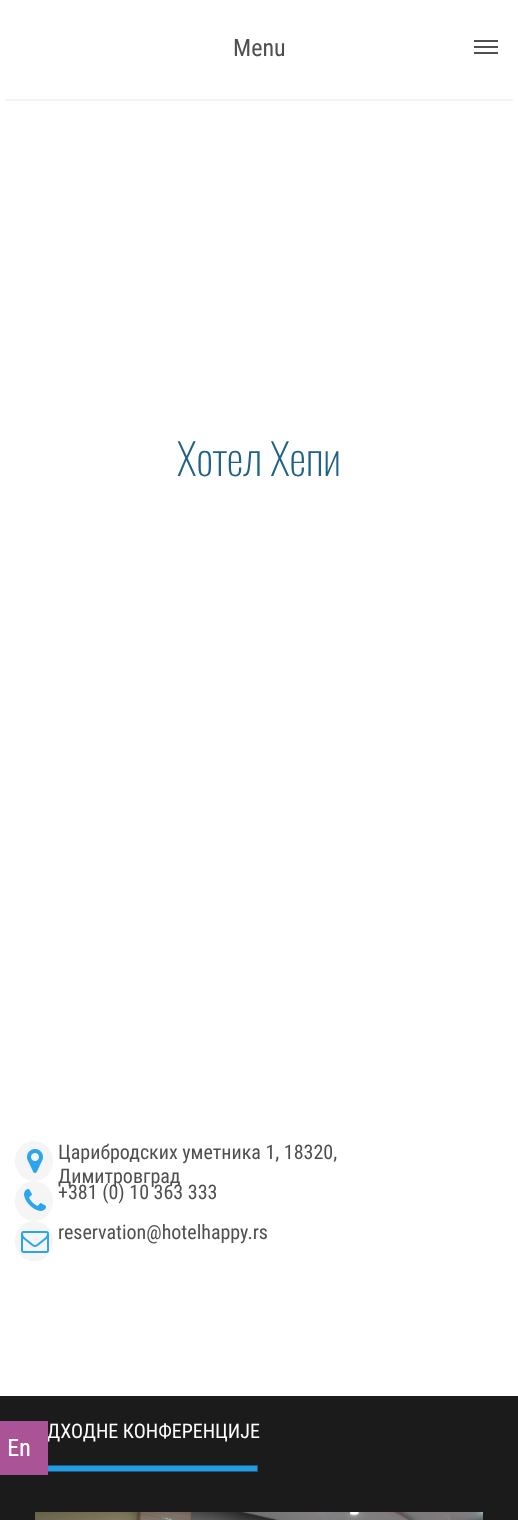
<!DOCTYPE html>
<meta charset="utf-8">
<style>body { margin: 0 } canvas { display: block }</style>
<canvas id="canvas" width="518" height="1520"></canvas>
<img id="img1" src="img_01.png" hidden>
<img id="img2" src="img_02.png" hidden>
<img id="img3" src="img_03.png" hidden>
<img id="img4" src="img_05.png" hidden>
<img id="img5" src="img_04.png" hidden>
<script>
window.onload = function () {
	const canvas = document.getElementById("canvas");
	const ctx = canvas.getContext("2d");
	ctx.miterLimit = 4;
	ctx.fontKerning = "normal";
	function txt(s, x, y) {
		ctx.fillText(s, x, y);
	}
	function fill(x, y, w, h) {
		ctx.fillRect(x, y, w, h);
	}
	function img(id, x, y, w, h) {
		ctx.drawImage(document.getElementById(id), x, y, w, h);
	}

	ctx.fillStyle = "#FFFFFF";
	fill(0, 0, 518, 1520);
	ctx.fillStyle = "#4F4F4F";
	fill(474, 40, 24, 2);
	fill(474, 46, 24, 2);
	fill(474, 52, 24, 2);
	ctx.fillStyle = "#F5F5F5";
	fill(5, 99, 508, 2);
	ctx.beginPath();
	ctx.ellipse(34, 1161, 19, 20, 0, 0, Math.PI * 2);
	ctx.fill();
	img("img1", 27, 1149, 16, 24);
	ctx.beginPath();
	ctx.ellipse(34, 1201, 19, 20, 0, 0, Math.PI * 2);
	ctx.fill();
	img("img2", 24, 1189, 22, 22);
	ctx.beginPath();
	ctx.ellipse(34, 1241, 19, 20, 0, 0, Math.PI * 2);
	ctx.fill();
	img("img3", 21, 1231, 28, 22);
	ctx.fillStyle = "#1B1B1B";
	fill(0, 1396, 518, 124);
	ctx.fillStyle = "#209DE2";
	fill(48, 1466, 210, 5);
	ctx.strokeStyle = "#245580";
	ctx.strokeRect(10.5, 1465.5, 247, 6);
	img("img4", 35, 1512, 448, 8);
	ctx.font = "24px Roboto Condensed";
	ctx.fillStyle = "#4F4F4F";
	txt("Menu", 233, 56);
	ctx.font = "200 43px Oswald";
	ctx.fillStyle = "#206187";
	txt("Хотел Хепи", 177, 476);
	ctx.font = "20px Roboto Condensed";
	ctx.fillStyle = "#4F4F4F";
	txt("Царибродских уметника 1, 18320,", 58, 1159);
	txt("Димитровград", 58, 1183);
	txt("+381 (0) 10 363 333", 58, 1199);
	txt("reservation@hotelhappy.rs", 58, 1239);
	ctx.fillStyle = "#FFFFFF";
	txt("ДХОДНЕ КОНФЕРЕНЦИЈЕ", 47, 1438);
	img("img5", 0, 1421, 48, 54);
};
</script>
